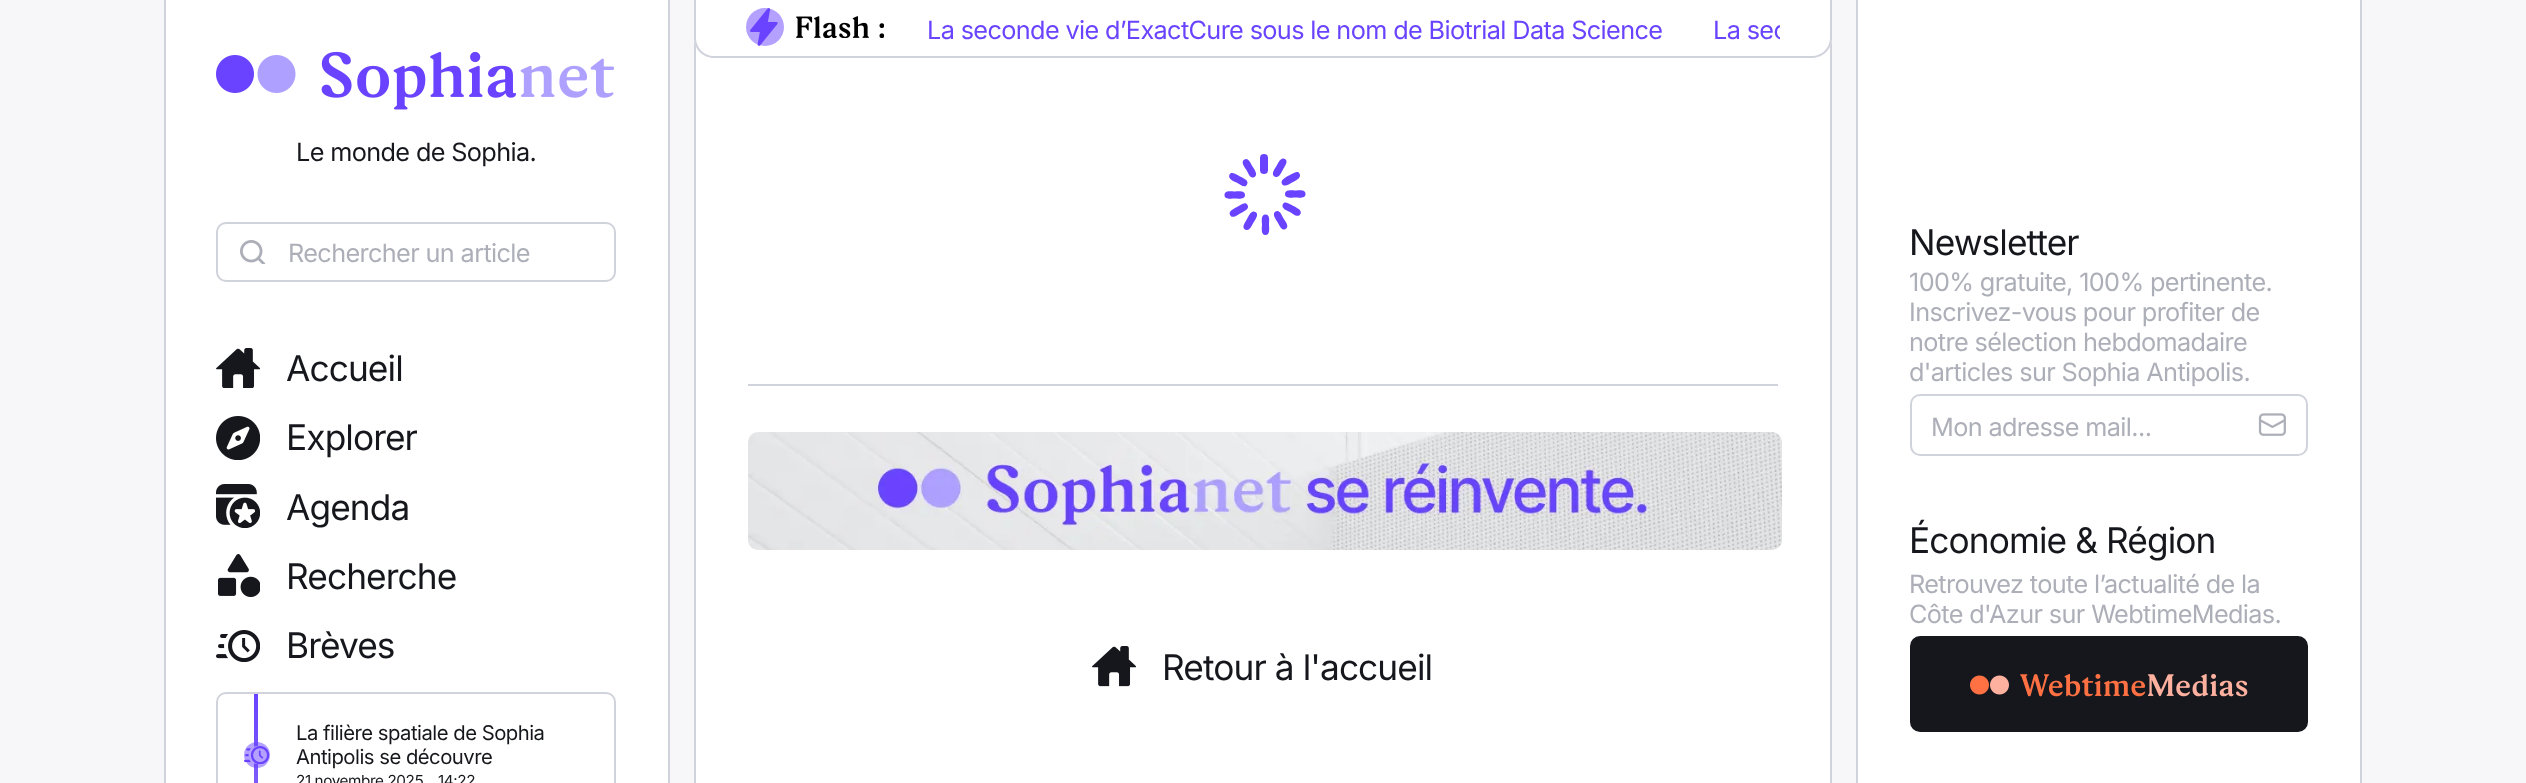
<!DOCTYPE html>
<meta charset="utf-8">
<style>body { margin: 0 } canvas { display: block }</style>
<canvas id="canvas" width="2526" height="783"></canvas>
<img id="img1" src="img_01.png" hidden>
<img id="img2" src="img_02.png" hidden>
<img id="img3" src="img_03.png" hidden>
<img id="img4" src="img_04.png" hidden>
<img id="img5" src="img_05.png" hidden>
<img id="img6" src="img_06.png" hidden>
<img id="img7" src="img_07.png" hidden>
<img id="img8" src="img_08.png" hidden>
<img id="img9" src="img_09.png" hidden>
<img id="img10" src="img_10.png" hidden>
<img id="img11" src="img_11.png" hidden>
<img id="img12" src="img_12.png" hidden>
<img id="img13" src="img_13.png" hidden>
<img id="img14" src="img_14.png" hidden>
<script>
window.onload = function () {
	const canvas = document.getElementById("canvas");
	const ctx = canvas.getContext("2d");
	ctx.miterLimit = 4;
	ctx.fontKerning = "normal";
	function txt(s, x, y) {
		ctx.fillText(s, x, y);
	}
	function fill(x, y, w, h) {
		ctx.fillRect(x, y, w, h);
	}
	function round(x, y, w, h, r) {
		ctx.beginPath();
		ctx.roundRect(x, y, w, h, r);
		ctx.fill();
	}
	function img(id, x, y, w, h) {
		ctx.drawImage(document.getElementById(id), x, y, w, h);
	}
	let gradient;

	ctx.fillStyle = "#F7F7FA";
	fill(0, 0, 2526, 783);
	ctx.fillStyle = "#FFFFFF";
	fill(166, 0, 502, 783);
	ctx.fillStyle = "#D1D3DC";
	fill(668, 0, 2, 783);
	fill(164, 0, 2, 783);
	img("img1", 216, 51, 398, 59);
	ctx.beginPath();
	ctx.roundRect(217, 223, 398, 58, 9);
	ctx.strokeStyle = "#D1D3DC";
	ctx.lineWidth = 2;
	ctx.stroke();
	img("img2", 240, 240, 26, 24);
	img("img3", 216, 348, 44, 40);
	img("img4", 216, 416, 44, 44);
	img("img5", 216, 484, 44, 44);
	img("img6", 218, 554, 42, 44);
	img("img7", 216, 630, 44, 32);
	gradient = ctx.createLinearGradient(256, 694, 256, 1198);
	gradient.addColorStop(0, "#6943FF");
	gradient.addColorStop(1, "#D1D3DC");
	ctx.fillStyle = gradient;
	fill(254, 694, 4, 89);
	ctx.beginPath();
	ctx.roundRect(217, 693, 398, 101, 9);
	ctx.stroke();
	ctx.fillStyle = "#FFFFFF";
	ctx.beginPath();
	ctx.arc(257, 755, 9, 0, Math.PI * 2);
	ctx.fill();
	img("img8", 244, 746, 26, 18);
	ctx.fillStyle = "rgba(105, 67, 255, 0.5)";
	ctx.beginPath();
	ctx.arc(257, 755, 13, 0, Math.PI * 2);
	ctx.fill();
	ctx.fillStyle = "#FFFFFF";
	fill(696, 46, 1134, 737);
	ctx.fillStyle = "#D1D3DC";
	ctx.beginPath();
	ctx.moveTo(714, -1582);
	ctx.lineTo(1812, -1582);
	ctx.bezierCurveTo(1823, -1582, 1832, -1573, 1832, -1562);
	ctx.lineTo(1832, 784);
	ctx.lineTo(694, 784);
	ctx.lineTo(694, -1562);
	ctx.bezierCurveTo(694, -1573, 703, -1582, 714, -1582);
	ctx.closePath();
	ctx.moveTo(714, -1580);
	ctx.lineTo(1812, -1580);
	ctx.bezierCurveTo(1822, -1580, 1830, -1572, 1830, -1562);
	ctx.lineTo(1830, 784);
	ctx.lineTo(696, 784);
	ctx.lineTo(696, -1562);
	ctx.bezierCurveTo(696, -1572, 704, -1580, 714, -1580);
	ctx.closePath();
	ctx.fill("evenodd");
	ctx.fillStyle = "#FFFFFF";
	ctx.beginPath();
	ctx.moveTo(694, -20);
	ctx.lineTo(1832, -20);
	ctx.lineTo(1832, 38);
	ctx.bezierCurveTo(1832, 49, 1823, 58, 1812, 58);
	ctx.lineTo(714, 58);
	ctx.bezierCurveTo(703, 58, 694, 49, 694, 38);
	ctx.closePath();
	ctx.fill();
	ctx.fillStyle = "#D1D3DC";
	ctx.beginPath();
	ctx.moveTo(694, -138);
	ctx.lineTo(1832, -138);
	ctx.lineTo(1832, 38);
	ctx.bezierCurveTo(1832, 49, 1823, 58, 1812, 58);
	ctx.lineTo(714, 58);
	ctx.bezierCurveTo(703, 58, 694, 49, 694, 38);
	ctx.closePath();
	ctx.moveTo(696, -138);
	ctx.lineTo(1830, -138);
	ctx.lineTo(1830, 38);
	ctx.bezierCurveTo(1830, 48, 1822, 56, 1812, 56);
	ctx.lineTo(714, 56);
	ctx.bezierCurveTo(704, 56, 696, 48, 696, 38);
	ctx.closePath();
	ctx.fill("evenodd");
	img("img9", 750, 8, 28, 38);
	ctx.fillStyle = "rgba(105, 67, 255, 0.5)";
	ctx.beginPath();
	ctx.arc(765, 27, 19, 0, Math.PI * 2);
	ctx.fill();
	img("img10", 796, 16, 88, 22);
	ctx.fillStyle = "#6943FF";
	ctx.beginPath();
	ctx.moveTo(1285, 159);
	ctx.bezierCurveTo(1289, 161.5, 1284, 167, 1283, 169.5);
	ctx.bezierCurveTo(1281.5, 172, 1279, 179, 1274.5, 176.5);
	ctx.bezierCurveTo(1270.5, 174, 1275, 168.5, 1276.5, 166);
	ctx.bezierCurveTo(1278, 163.5, 1280.5, 156.5, 1285, 159);
	ctx.closePath();
	ctx.fill();
	ctx.beginPath();
	ctx.moveTo(1299.5, 173.5);
	ctx.bezierCurveTo(1302, 178, 1295.5, 180.5, 1293, 182);
	ctx.bezierCurveTo(1290, 183.5, 1284.5, 188, 1282, 184);
	ctx.bezierCurveTo(1280, 179.5, 1286.5, 177, 1289, 175.5);
	ctx.bezierCurveTo(1292, 174, 1297.5, 169.5, 1299.5, 173.5);
	ctx.closePath();
	ctx.moveTo(1305.5, 194);
	ctx.bezierCurveTo(1305.5, 199, 1298.5, 197.5, 1295.5, 197.5);
	ctx.bezierCurveTo(1292.5, 197.5, 1285, 199, 1285, 194);
	ctx.bezierCurveTo(1285, 189, 1292.5, 190.5, 1295.5, 190.5);
	ctx.bezierCurveTo(1298.5, 190.5, 1305.5, 189, 1305.5, 194);
	ctx.closePath();
	ctx.moveTo(1300.5, 214);
	ctx.bezierCurveTo(1298, 218.5, 1292.5, 213.5, 1290, 212);
	ctx.bezierCurveTo(1287, 210.5, 1280.5, 208.5, 1283, 204);
	ctx.bezierCurveTo(1285, 200, 1290.5, 204.5, 1293.5, 206);
	ctx.bezierCurveTo(1296, 207.5, 1302.5, 210, 1300.5, 214);
	ctx.closePath();
	ctx.fill();
	ctx.beginPath();
	ctx.moveTo(1285.5, 229);
	ctx.bezierCurveTo(1281.5, 231.5, 1279, 224.5, 1277.5, 222);
	ctx.bezierCurveTo(1276, 219.5, 1271.5, 214, 1275.5, 211.5);
	ctx.bezierCurveTo(1280, 209, 1282, 216, 1283.5, 218.5);
	ctx.bezierCurveTo(1285, 221, 1290, 226.5, 1285.5, 229);
	ctx.closePath();
	ctx.moveTo(1265.5, 235);
	ctx.bezierCurveTo(1260.5, 235, 1262, 227.5, 1262, 224.5);
	ctx.bezierCurveTo(1262, 222, 1260.5, 214.5, 1265.5, 214.5);
	ctx.bezierCurveTo(1270.5, 214.5, 1269, 222, 1269, 224.5);
	ctx.bezierCurveTo(1269, 227.5, 1270.5, 235, 1265.5, 235);
	ctx.closePath();
	ctx.moveTo(1245, 229.5);
	ctx.bezierCurveTo(1241, 227, 1246, 221.5, 1247, 219);
	ctx.bezierCurveTo(1248.5, 216.5, 1251, 209.5, 1255.5, 212);
	ctx.bezierCurveTo(1259.5, 214.5, 1255, 220, 1253.5, 222.5);
	ctx.bezierCurveTo(1252, 225, 1249.5, 232, 1245, 229.5);
	ctx.closePath();
	ctx.fill();
	ctx.beginPath();
	ctx.moveTo(1230, 215);
	ctx.bezierCurveTo(1228, 211, 1234.5, 208.5, 1237, 207);
	ctx.bezierCurveTo(1240, 205.5, 1245.5, 200.5, 1247.5, 205);
	ctx.bezierCurveTo(1250, 209, 1243.5, 211.5, 1241, 213);
	ctx.bezierCurveTo(1238, 214.5, 1232.5, 219.5, 1230, 215);
	ctx.closePath();
	ctx.moveTo(1224.5, 195);
	ctx.bezierCurveTo(1224.5, 190, 1231.5, 191.5, 1234.5, 191.5);
	ctx.bezierCurveTo(1237.5, 191.5, 1245, 190, 1245, 195);
	ctx.bezierCurveTo(1245, 200, 1237.5, 198.5, 1234.5, 198.5);
	ctx.bezierCurveTo(1231.5, 198.5, 1224.5, 200, 1224.5, 195);
	ctx.closePath();
	ctx.moveTo(1229.5, 174.5);
	ctx.bezierCurveTo(1232, 170.5, 1237.5, 175, 1240, 176.5);
	ctx.bezierCurveTo(1243, 178, 1249.5, 180.5, 1247, 184.5);
	ctx.bezierCurveTo(1245, 189, 1239.5, 184, 1236.5, 182.5);
	ctx.bezierCurveTo(1234, 181.5, 1227.5, 179, 1229.5, 174.5);
	ctx.closePath();
	ctx.fill();
	ctx.beginPath();
	ctx.moveTo(1244.5, 159.5);
	ctx.bezierCurveTo(1248.5, 157, 1251, 164, 1252.5, 166.5);
	ctx.bezierCurveTo(1254, 169, 1258.5, 174.5, 1254.5, 177);
	ctx.bezierCurveTo(1250, 179.5, 1248, 172.5, 1246.5, 170);
	ctx.bezierCurveTo(1245, 167.5, 1240, 162, 1244.5, 159.5);
	ctx.closePath();
	ctx.fill();
	round(1260, 154, 8, 20, 4);
	ctx.fillStyle = "#D1D3DC";
	fill(748, 384, 1030, 2);
	img("img11", 748, 432, 1034, 118);
	img("img12", 1092, 646, 44, 41);
	ctx.fillStyle = "#FFFFFF";
	fill(1858, 0, 502, 783);
	ctx.fillStyle = "#D1D3DC";
	fill(2360, 0, 2, 783);
	fill(1856, 0, 2, 783);
	ctx.beginPath();
	ctx.roundRect(1911, 395, 396, 60, 9);
	ctx.stroke();
	img("img13", 2258, 413, 28, 23);
	ctx.fillStyle = "#16171C";
	round(1910, 636, 398, 96, 10);
	img("img14", 1970, 673, 278, 24);
	ctx.letterSpacing = "-0.63px";
	ctx.font = "25.25px Inter";
	txt("Le monde de Sophia.", 296, 161);
	ctx.fillStyle = "#ADAFB8";
	txt("Rechercher un article", 288, 262);
	ctx.letterSpacing = "-0.9px";
	ctx.font = "35.25px Inter";
	ctx.fillStyle = "#16171C";
	txt("Accueil", 286, 381);
	txt("Explorer", 286, 450);
	txt("Agenda", 286, 520);
	txt("Recherche", 286, 589);
	txt("Brèves", 286, 658);
	ctx.letterSpacing = "-0.5px";
	ctx.font = "20.25px Inter";
	txt("La filière spatiale de Sophia", 296, 740);
	txt("Antipolis se découvre", 296, 764);
	ctx.letterSpacing = "-0.4px";
	ctx.font = "15.25px Inter";
	txt("21 novembre 2025", 296, 786);
	txt("14:22", 438, 786);
	ctx.letterSpacing = "-0.63px";
	ctx.font = "25.25px Inter";
	ctx.fillStyle = "#6943FF";
	txt("La seconde vie d’ExactCure sous le nom de Biotrial Data Science", 927, 39);
	ctx.save();
	ctx.beginPath();
	ctx.rect(902, 0, 878, 60);
	ctx.clip();
	txt("La sec", 1713, 39);
	ctx.restore();
	ctx.letterSpacing = "-0.9px";
	ctx.font = "35.25px Inter";
	ctx.fillStyle = "#16171C";
	txt("Retour à l'accueil", 1162, 680);
	txt("Newsletter", 1909, 255);
	ctx.letterSpacing = "-0.63px";
	ctx.font = "25.25px Inter";
	ctx.fillStyle = "#ADAFB8";
	txt("100% gratuite, 100% pertinente.", 1909, 291);
	txt("Inscrivez-vous pour profiter de", 1909, 321);
	txt("notre sélection hebdomadaire", 1909, 351);
	txt("d'articles sur Sophia Antipolis.", 1909, 381);
	txt("Mon adresse mail...", 1931, 436);
	ctx.letterSpacing = "-0.9px";
	ctx.font = "35.25px Inter";
	ctx.fillStyle = "#16171C";
	txt("Économie & Région", 1909, 553);
	ctx.letterSpacing = "-0.63px";
	ctx.font = "25.25px Inter";
	ctx.fillStyle = "#ADAFB8";
	txt("Retrouvez toute l’actualité de la", 1909, 593);
	txt("Côte d'Azur sur WebtimeMedias.", 1909, 623);
};
</script>
